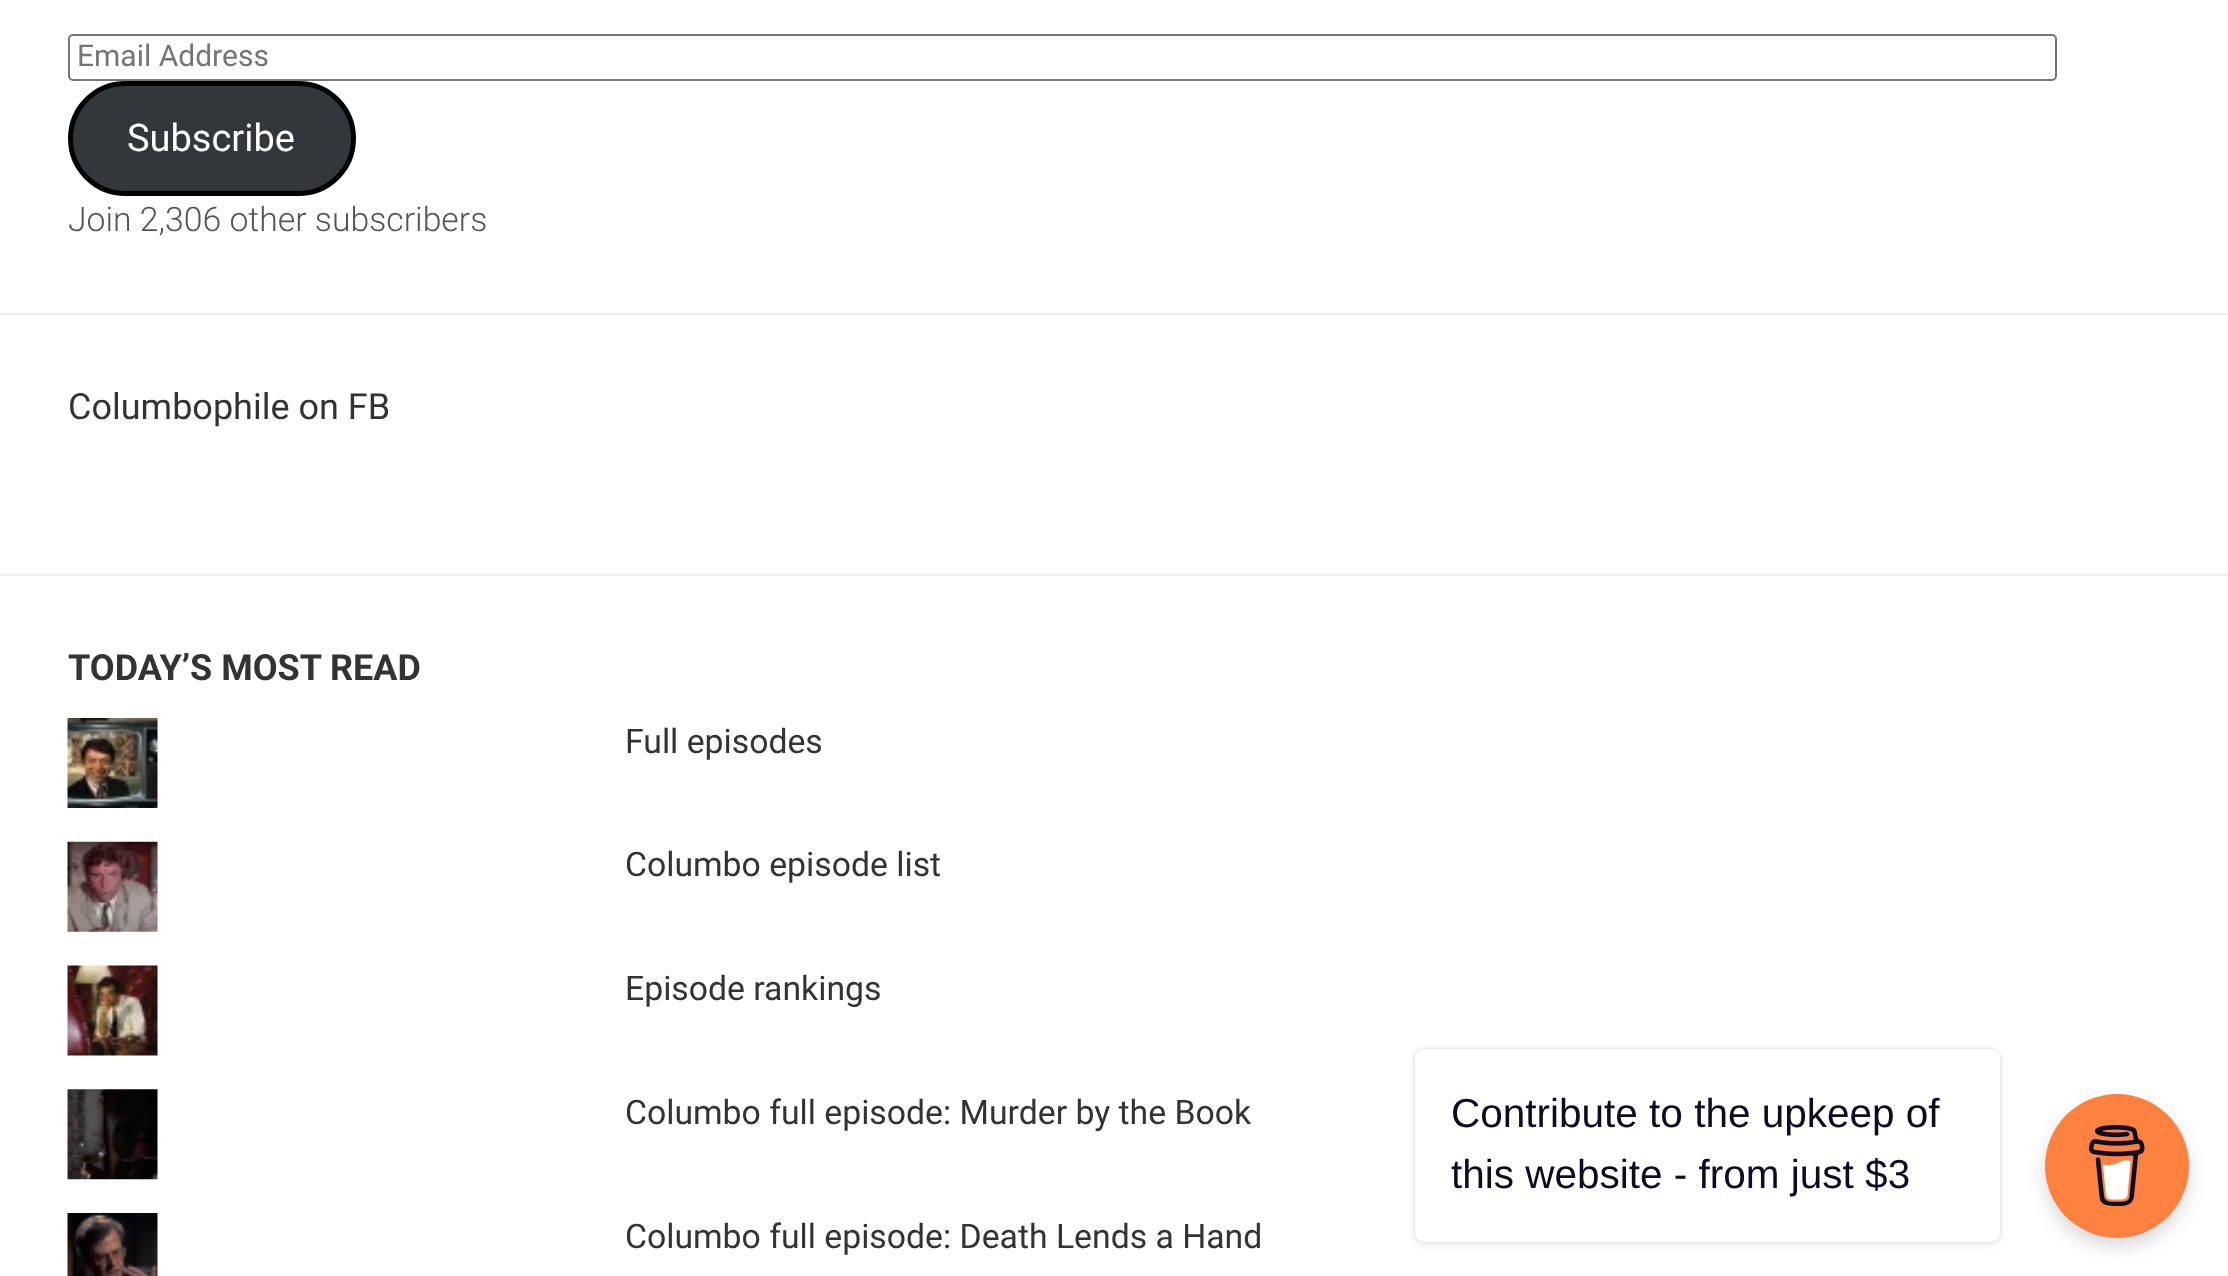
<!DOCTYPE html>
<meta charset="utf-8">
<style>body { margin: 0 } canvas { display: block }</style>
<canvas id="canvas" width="2228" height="1276"></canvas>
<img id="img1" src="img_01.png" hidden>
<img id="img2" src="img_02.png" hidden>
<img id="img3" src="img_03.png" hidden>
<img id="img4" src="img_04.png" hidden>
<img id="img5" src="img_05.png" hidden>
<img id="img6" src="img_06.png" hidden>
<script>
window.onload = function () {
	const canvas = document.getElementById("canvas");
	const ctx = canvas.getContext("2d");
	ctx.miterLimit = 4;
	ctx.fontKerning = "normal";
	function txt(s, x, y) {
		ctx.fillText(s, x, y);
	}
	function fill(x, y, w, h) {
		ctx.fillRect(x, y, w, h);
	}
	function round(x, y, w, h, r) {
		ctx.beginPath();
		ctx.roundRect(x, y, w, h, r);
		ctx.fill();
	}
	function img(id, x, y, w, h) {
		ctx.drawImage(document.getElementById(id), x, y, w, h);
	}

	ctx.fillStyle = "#FFFFFF";
	fill(0, 0, 2228, 1276);
	ctx.fillStyle = "#EEEEEE";
	fill(0, 313, 2228, 2);
	ctx.beginPath();
	ctx.roundRect(69, 35, 1987, 45, 4);
	ctx.strokeStyle = "#767676";
	ctx.lineWidth = 2;
	ctx.stroke();
	ctx.fillStyle = "#32373C";
	ctx.beginPath();
	ctx.roundRect(70.5, 83.5, 283, 110, 55);
	ctx.fill();
	ctx.strokeStyle = "#000000";
	ctx.lineWidth = 5;
	ctx.stroke();
	ctx.fillStyle = "#EEEEEE";
	fill(0, 574, 2228, 2);
	img("img1", 67, 718, 91, 90);
	img("img2", 67, 841, 91, 91);
	img("img3", 67, 965, 91, 91);
	img("img4", 67, 1089, 91, 91);
	img("img5", 67, 1213, 91, 63);
	ctx.fillStyle = "rgba(0, 0, 0, 0.15)";
	ctx.filter = "blur(2px)";
	ctx.beginPath();
	ctx.roundRect(1415, 1049, 585, 193, 9);
	ctx.fill();
	ctx.filter = "none";
	ctx.fillStyle = "rgba(0, 0, 0, 0.05)";
	ctx.filter = "blur(5.5px)";
	ctx.beginPath();
	ctx.roundRect(1415, 1053, 585, 194, 9);
	ctx.fill();
	ctx.filter = "none";
	ctx.fillStyle = "#FFFFFF";
	round(1415, 1049, 585, 193, 9);
	ctx.fillStyle = "rgba(0, 0, 0, 0.15)";
	ctx.filter = "blur(9px)";
	ctx.beginPath();
	ctx.roundRect(2045, 1103, 144, 144, 72);
	ctx.fill();
	ctx.filter = "none";
	ctx.fillStyle = "#FF813F";
	ctx.beginPath();
	ctx.arc(2117, 1166, 72, 0, Math.PI * 2);
	ctx.fill();
	img("img6", 2088, 1125, 57, 81);
	ctx.font = "30px Roboto";
	ctx.fillStyle = "#757575";
	txt("Email Address", 77, 66);
	ctx.font = "38px Roboto";
	ctx.fillStyle = "#FFFFFF";
	txt("Subscribe", 127, 151);
	ctx.font = "300 33.75px Roboto";
	ctx.fillStyle = "#555555";
	txt("Join 2,306 other subscribers", 68, 231);
	ctx.font = "36px Roboto";
	ctx.fillStyle = "#333333";
	txt("Columbophile on FB", 68, 419);
	ctx.font = "bold 36px Roboto";
	txt("TODAY’S MOST READ", 68, 680);
	ctx.font = "33.75px Roboto";
	txt("Full episodes", 625, 753);
	txt("Columbo episode list", 625, 876);
	txt("Episode rankings", 625, 1000);
	txt("Columbo full episode: Murder by the Book", 625, 1124);
	txt("Columbo full episode: Death Lends a Hand", 625, 1248);
	ctx.font = "40.5px Liberation Sans";
	ctx.fillStyle = "#0D0C22";
	txt("Contribute to the upkeep of", 1451, 1127);
	txt("this website - from just $3", 1451, 1188);
};
</script>
